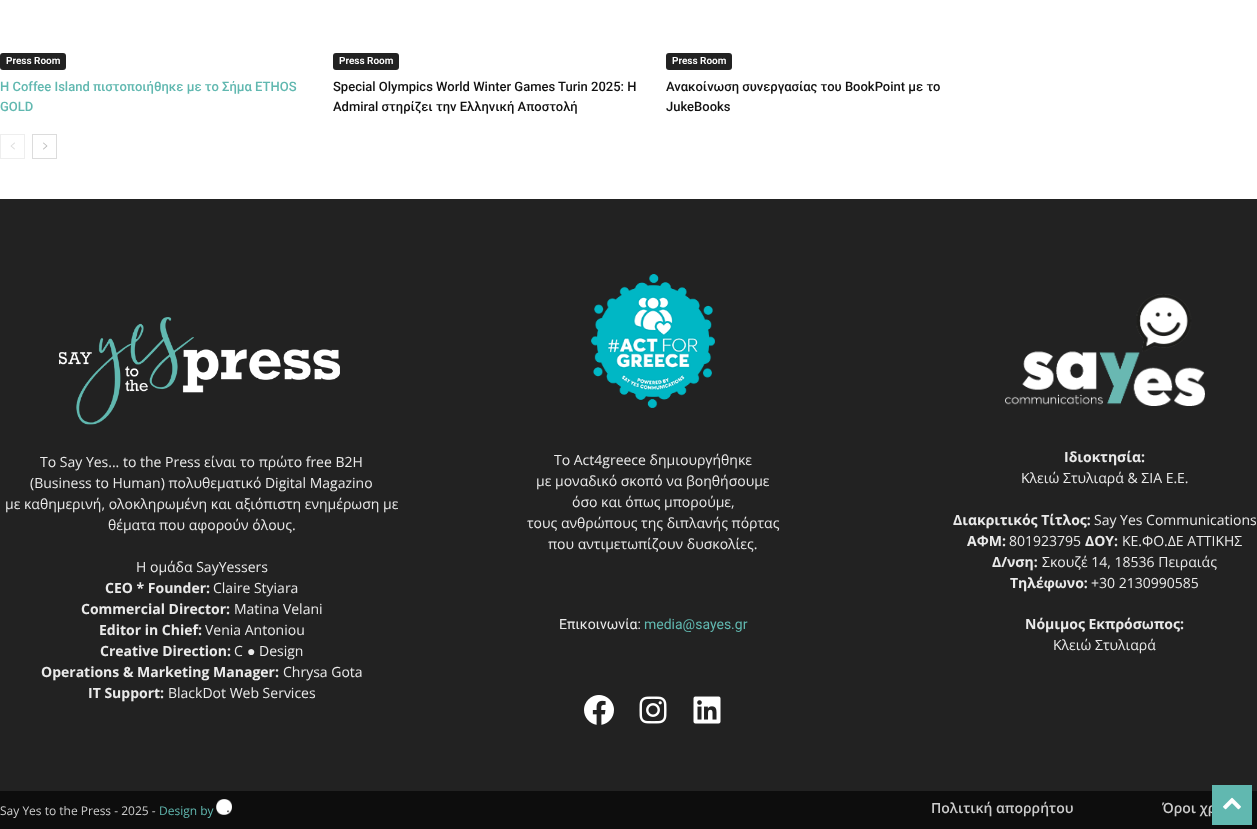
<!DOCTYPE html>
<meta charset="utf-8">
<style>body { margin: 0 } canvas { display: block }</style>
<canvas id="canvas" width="1257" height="829"></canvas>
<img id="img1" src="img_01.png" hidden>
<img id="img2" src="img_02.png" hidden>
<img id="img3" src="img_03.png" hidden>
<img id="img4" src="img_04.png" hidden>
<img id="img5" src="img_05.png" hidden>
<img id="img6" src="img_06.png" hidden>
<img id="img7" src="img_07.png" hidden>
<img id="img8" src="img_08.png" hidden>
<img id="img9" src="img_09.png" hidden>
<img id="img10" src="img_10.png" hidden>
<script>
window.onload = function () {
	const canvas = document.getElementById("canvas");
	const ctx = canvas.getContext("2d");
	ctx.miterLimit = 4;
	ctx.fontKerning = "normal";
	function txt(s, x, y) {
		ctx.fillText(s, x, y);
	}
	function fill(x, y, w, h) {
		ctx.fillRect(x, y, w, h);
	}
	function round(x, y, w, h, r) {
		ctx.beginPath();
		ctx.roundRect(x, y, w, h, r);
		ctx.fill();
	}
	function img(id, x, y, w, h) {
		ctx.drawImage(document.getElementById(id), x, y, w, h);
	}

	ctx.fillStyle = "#FFFFFF";
	fill(0, 0, 1257, 829);
	ctx.fillStyle = "#222222";
	round(0, 53, 66, 17, 3);
	round(333, 53, 66, 17, 3);
	round(666, 53, 66, 17, 3);
	ctx.strokeStyle = "#EEEEEE";
	ctx.strokeRect(0.5, 134.5, 24, 24);
	img("img1", 10, 142, 5, 8);
	ctx.strokeStyle = "#DCDCDC";
	ctx.strokeRect(32.5, 134.5, 24, 24);
	img("img2", 43, 142, 5, 8);
	fill(0, 199, 1257, 592);
	img("img3", 59, 317, 281, 108);
	img("img4", 591, 274, 124, 134);
	img("img5", 584, 695, 30, 30);
	img("img6", 639, 696, 28, 28);
	img("img7", 693, 696, 28, 28);
	img("img8", 1005, 294, 200, 112);
	ctx.fillStyle = "#0D0D0D";
	fill(0, 791, 1257, 38);
	img("img9", 216, 799, 16, 16);
	ctx.font = "600 10px Roboto";
	ctx.fillStyle = "#FFFFFF";
	txt("Press Room", 6, 64);
	ctx.font = "500 13px Roboto";
	ctx.fillStyle = "#61B8B0";
	txt("Η Coffee Island πιστοποιήθηκε με το Σήμα ETHOS", 0, 91);
	txt("GOLD", 0, 111);
	ctx.font = "600 10px Roboto";
	ctx.fillStyle = "#FFFFFF";
	txt("Press Room", 339, 64);
	ctx.font = "500 13px Roboto";
	ctx.fillStyle = "#111111";
	txt("Special Olympics World Winter Games Turin 2025: Η", 333, 91);
	txt("Admiral στηρίζει την Ελληνική Αποστολή", 333, 111);
	ctx.font = "600 10px Roboto";
	ctx.fillStyle = "#FFFFFF";
	txt("Press Room", 672, 64);
	ctx.font = "500 13px Roboto";
	ctx.fillStyle = "#111111";
	txt("Ανακοίνωση συνεργασίας του BookPoint με το", 666, 91);
	txt("JukeBooks", 666, 111);
	ctx.font = "14px Open Sans";
	ctx.fillStyle = "#EAEAEA";
	txt("Το Say Yes... to the Press είναι το πρώτο free Β2Η", 40, 467);
	txt("(Business to Human) πολυθεματικό Digital Magazino", 30, 488);
	txt("με καθημερινή, ολοκληρωμένη και αξιόπιστη ενημέρωση με", 5, 509);
	txt("θέματα που αφορούν όλους.", 108, 530);
	txt("Η ομάδα SayYessers", 136, 572);
	ctx.font = "bold 14px Open Sans";
	txt("CEO * Founder:", 105, 593);
	ctx.font = "14px Open Sans";
	txt("Claire Styiara", 213, 593);
	ctx.font = "bold 14px Open Sans";
	txt("Commercial Director:", 81, 614);
	ctx.font = "14px Open Sans";
	txt("Matina Velani", 234, 614);
	ctx.font = "bold 14px Open Sans";
	txt("Editor in Chief:", 99, 635);
	ctx.font = "14px Open Sans";
	txt("Venia Antoniou", 205, 635);
	ctx.font = "bold 14px Open Sans";
	txt("Creative Direction:", 100, 656);
	ctx.font = "14px Open Sans";
	txt("C", 234, 656);
	ctx.font = "14px Liberation Sans";
	txt("●", 247, 656);
	ctx.font = "14px Open Sans";
	txt("Design", 259, 656);
	ctx.font = "bold 14px Open Sans";
	txt("Operations & Marketing Manager:", 41, 677);
	ctx.font = "14px Open Sans";
	txt("Chrysa Gota", 283, 677);
	ctx.font = "bold 14px Open Sans";
	txt("IT Support:", 88, 698);
	ctx.font = "14px Open Sans";
	txt("BlackDot Web Services", 168, 698);
	txt("Το Act4greece δημιουργήθηκε", 554, 465);
	txt("με μοναδικό σκοπό να βοηθήσουμε", 536, 486);
	txt("όσο και όπως μπορούμε,", 572, 507);
	txt("τους ανθρώπους της διπλανής πόρτας", 527, 528);
	txt("που αντιμετωπίζουν δυσκολίες.", 548, 549);
	ctx.font = "14px Roboto";
	txt("Επικοινωνία:", 559, 629);
	ctx.fillStyle = "#61B8B0";
	txt("media@sayes.gr", 644, 629);
	ctx.font = "bold 14px Open Sans";
	ctx.fillStyle = "#EAEAEA";
	txt("Ιδιοκτησία:", 1064, 462);
	ctx.font = "14px Open Sans";
	txt("Κλειώ Στυλιαρά & ΣΙΑ Ε.Ε.", 1021, 483);
	ctx.font = "bold 14px Open Sans";
	txt("Διακριτικός Τίτλος:", 953, 525);
	ctx.font = "14px Open Sans";
	txt("Say Yes Communications", 1094, 525);
	ctx.font = "bold 14px Open Sans";
	txt("ΑΦΜ:", 967, 546);
	ctx.font = "14px Open Sans";
	txt("801923795", 1009, 546);
	ctx.font = "bold 14px Open Sans";
	txt("ΔΟΥ:", 1085, 546);
	ctx.font = "14px Open Sans";
	txt("ΚΕ.ΦΟ.ΔΕ ΑΤΤΙΚΗΣ", 1122, 546);
	ctx.font = "bold 14px Open Sans";
	txt("Δ/νση:", 992, 567);
	ctx.font = "14px Open Sans";
	txt("Σκουζέ 14, 18536 Πειραιάς", 1042, 567);
	ctx.font = "bold 14px Open Sans";
	txt("Τηλέφωνο:", 1010, 588);
	ctx.font = "14px Open Sans";
	txt("+30 2130990585", 1091, 588);
	ctx.font = "bold 14px Open Sans";
	txt("Νόμιμος Εκπρόσωπος:", 1025, 629);
	ctx.font = "14px Open Sans";
	txt("Κλειώ Στυλιαρά", 1053, 650);
	ctx.font = "12px Open Sans";
	ctx.fillStyle = "#CCCCCC";
	txt("Say Yes to the Press - 2025 -", 0, 815);
	ctx.fillStyle = "#61B8B0";
	txt("Design by", 159, 815);
	ctx.font = "600 14px Open Sans";
	ctx.fillStyle = "#CCCCCC";
	txt("Πολιτική απορρήτου", 931, 813);
	txt("Όροι χρ", 1162, 813);
	ctx.fillStyle = "#61B8B0";
	fill(1212, 785, 40, 40);
	img("img10", 1223, 797, 18, 13);
};
</script>
